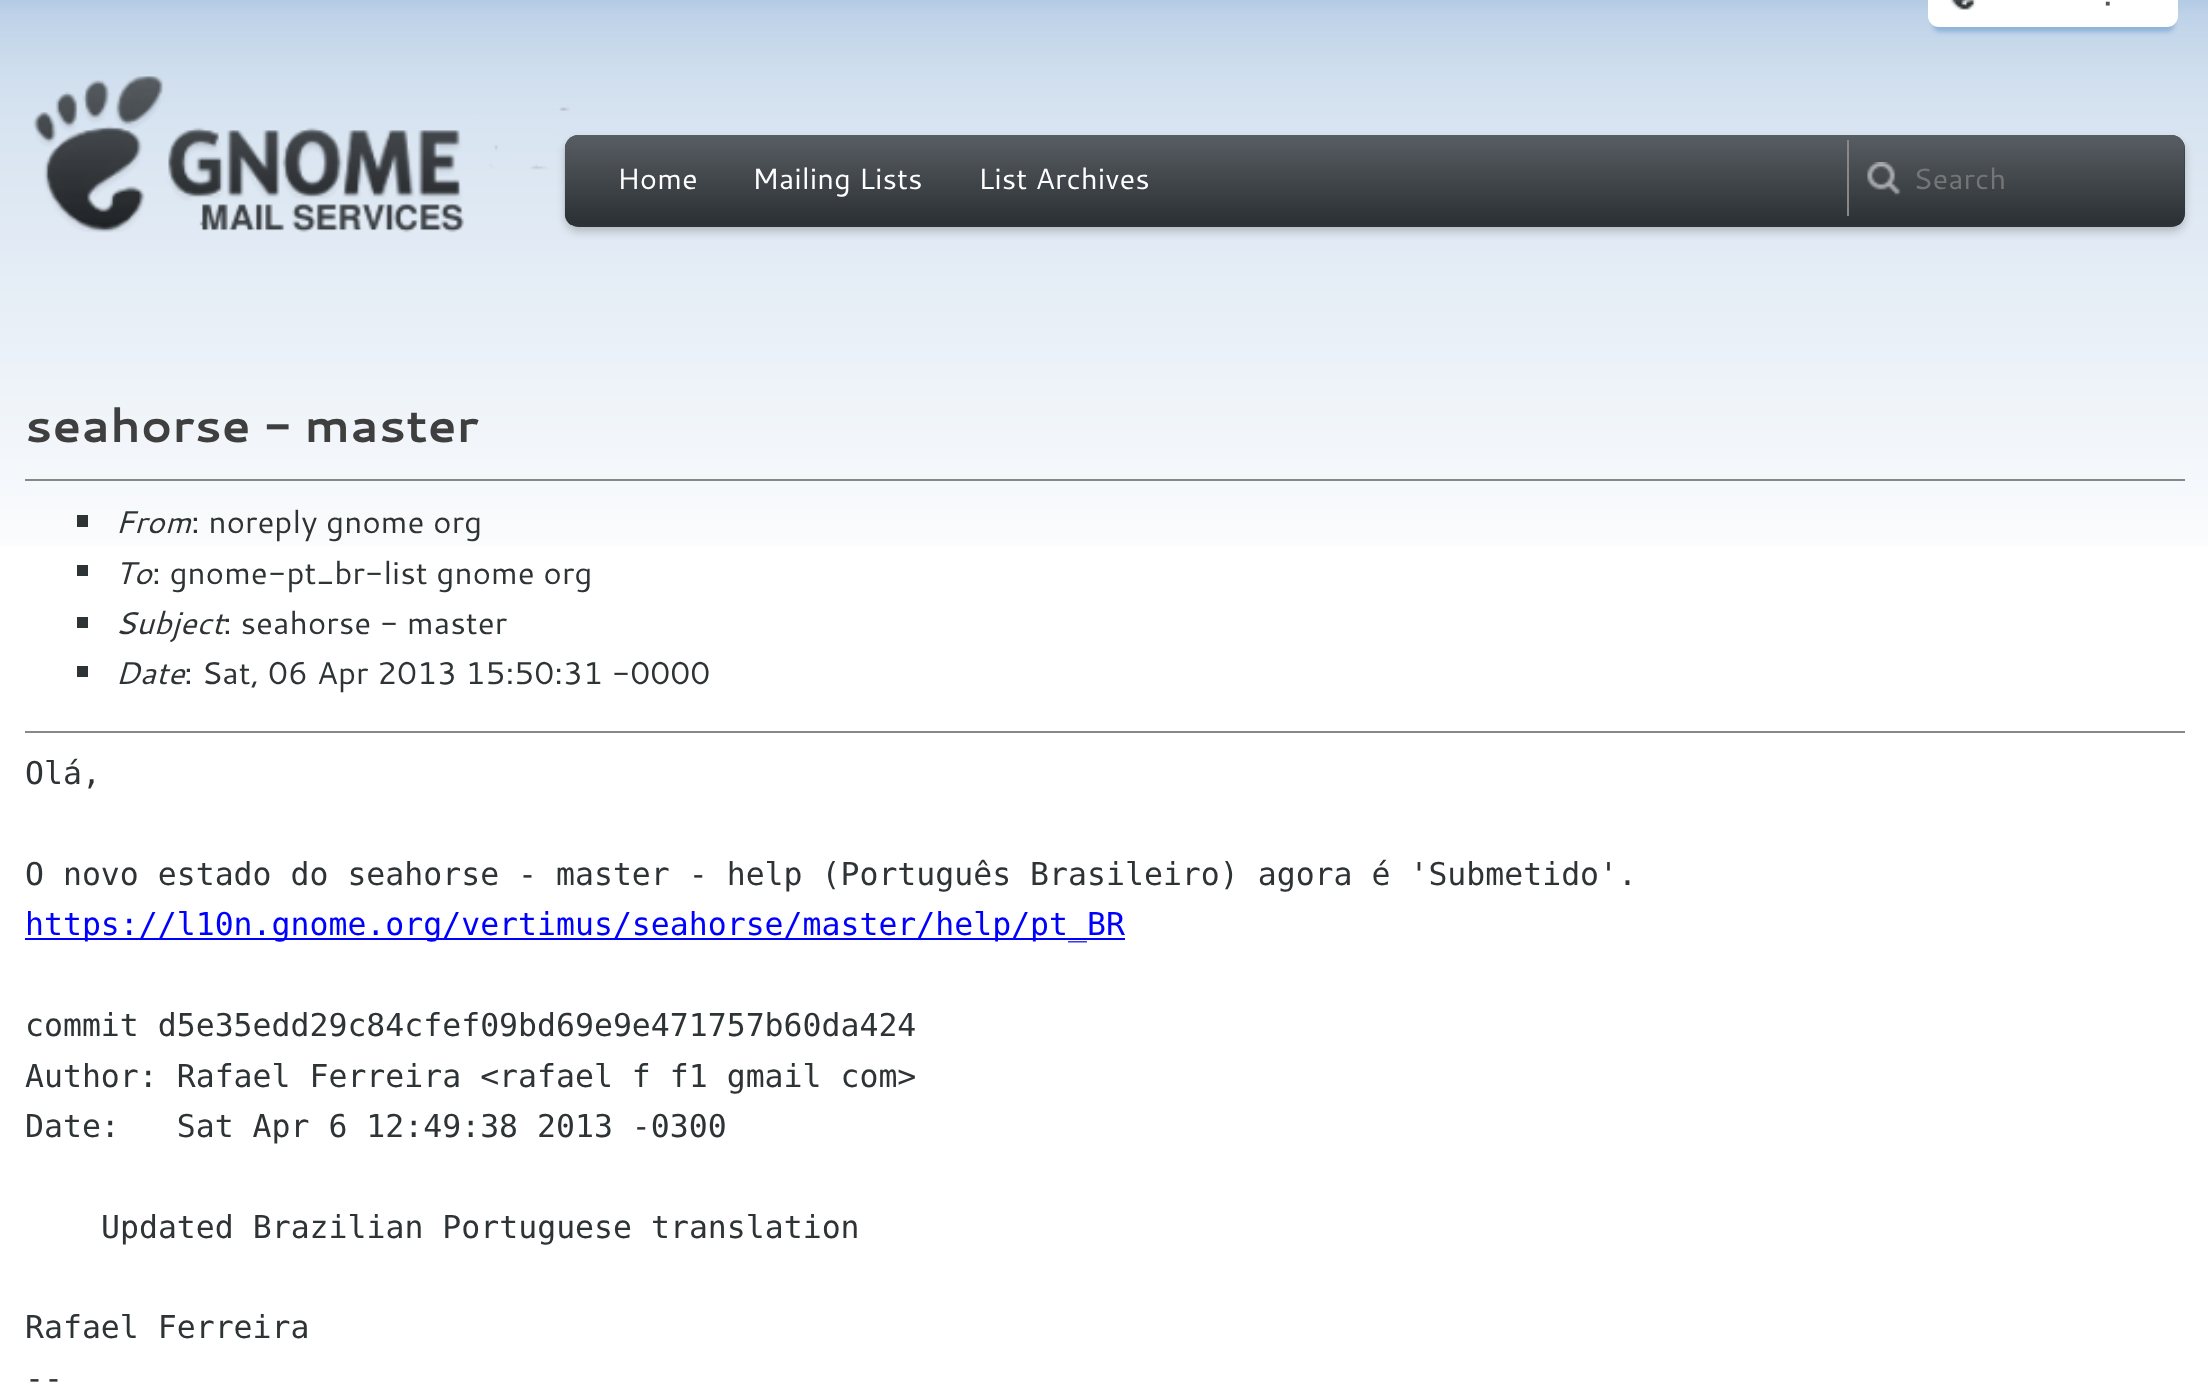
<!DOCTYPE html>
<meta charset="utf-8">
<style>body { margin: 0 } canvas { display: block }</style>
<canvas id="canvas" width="2208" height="1395"></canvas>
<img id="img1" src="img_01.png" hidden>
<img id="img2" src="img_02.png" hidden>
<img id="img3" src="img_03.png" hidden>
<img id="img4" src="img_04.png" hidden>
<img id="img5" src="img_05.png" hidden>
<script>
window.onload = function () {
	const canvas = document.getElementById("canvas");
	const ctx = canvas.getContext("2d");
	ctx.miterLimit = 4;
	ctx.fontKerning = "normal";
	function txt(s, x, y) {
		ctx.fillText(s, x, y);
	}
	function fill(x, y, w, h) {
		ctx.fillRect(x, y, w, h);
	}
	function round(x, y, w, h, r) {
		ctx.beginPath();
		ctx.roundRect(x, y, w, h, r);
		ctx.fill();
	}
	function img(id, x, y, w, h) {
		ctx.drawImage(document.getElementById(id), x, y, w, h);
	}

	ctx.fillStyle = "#FFFFFF";
	fill(0, 0, 2208, 1395);
	img("img1", 0, 0, 2208, 546);
	ctx.fillStyle = "#8FB3D9";
	ctx.filter = "blur(2px)";
	ctx.beginPath();
	ctx.roundRect(1933, -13, 241, 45, 7);
	ctx.fill();
	ctx.filter = "none";
	ctx.fillStyle = "#FFFFFF";
	round(1928, -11, 250, 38, 11);
	img("img2", 1950, 0, 26, 10);
	img("img3", 33, 76, 537, 157);
	ctx.fillStyle = "rgba(0, 0, 0, 0.2)";
	ctx.filter = "blur(4.5px)";
	ctx.beginPath();
	ctx.roundRect(565, 140, 1620, 92, 14);
	ctx.fill();
	ctx.filter = "none";
	ctx.fillStyle = "#2E3436";
	round(565, 135, 1620, 92, 14);
	img("img4", 564, 135, 1621, 90);
	img("img5", 1867, 162, 34, 34);
	ctx.fillStyle = "#888888";
	fill(1847, 140, 2, 76);
	fill(25, 479, 2160, 2);
	ctx.fillStyle = "#2E3436";
	fill(77, 515, 11, 12);
	fill(77, 565, 11, 11);
	fill(77, 617, 11, 11);
	fill(77, 666, 11, 11);
	ctx.fillStyle = "#888888";
	fill(25, 731, 2160, 2);
	ctx.fillStyle = "#0000FF";
	fill(25, 938, 1100, 2);
	ctx.font = "bold 27px Cantarell";
	ctx.fillStyle = "#555753";
	txt(".", 2104, 5);
	ctx.font = "29.25px Cantarell";
	ctx.fillStyle = "#FFFFFF";
	txt("Home", 617, 189);
	txt("Mailing Lists", 752, 189);
	txt("List Archives", 978, 189);
	ctx.fillStyle = "#757575";
	txt("Search", 1913, 189);
	ctx.font = "bold 47.25px Cantarell";
	ctx.fillStyle = "#3F3F3F";
	txt("seahorse - master", 25, 442);
	ctx.font = "italic 31.5px Cantarell";
	ctx.fillStyle = "#2E3436";
	txt("From", 115, 533);
	ctx.font = "31.5px Cantarell";
	txt(": noreply gnome org", 191, 533);
	ctx.font = "italic 31.5px Cantarell";
	txt("To", 115, 584);
	ctx.font = "31.5px Cantarell";
	txt(": gnome-pt_br-list gnome org", 152, 584);
	ctx.font = "italic 31.5px Cantarell";
	txt("Subject", 115, 634);
	ctx.font = "31.5px Cantarell";
	txt(": seahorse - master", 223, 634);
	ctx.font = "italic 31.5px Cantarell";
	txt("Date", 115, 684);
	ctx.font = "31.5px Cantarell";
	txt(": Sat, 06 Apr 2013 15:50:31 -0000", 184, 684);
	ctx.font = "31.5px DejaVu Sans Mono";
	txt("Olá,", 25, 784);
	txt("O novo estado do seahorse - master - help (Português Brasileiro) agora é 'Submetido'.", 25, 885);
	ctx.fillStyle = "#0000FF";
	txt("https://l10n.gnome.org/vertimus/seahorse/master/help/pt_BR", 25, 935);
	ctx.fillStyle = "#2E3436";
	txt("commit d5e35edd29c84cfef09bd69e9e471757b60da424", 25, 1036);
	txt("Author: Rafael Ferreira <rafael f f1 gmail com>", 25, 1087);
	txt("Date:   Sat Apr 6 12:49:38 2013 -0300", 25, 1137);
	txt("Updated Brazilian Portuguese translation", 101, 1238);
	txt("Rafael Ferreira", 25, 1338);
	txt("--", 25, 1389);
};
</script>
